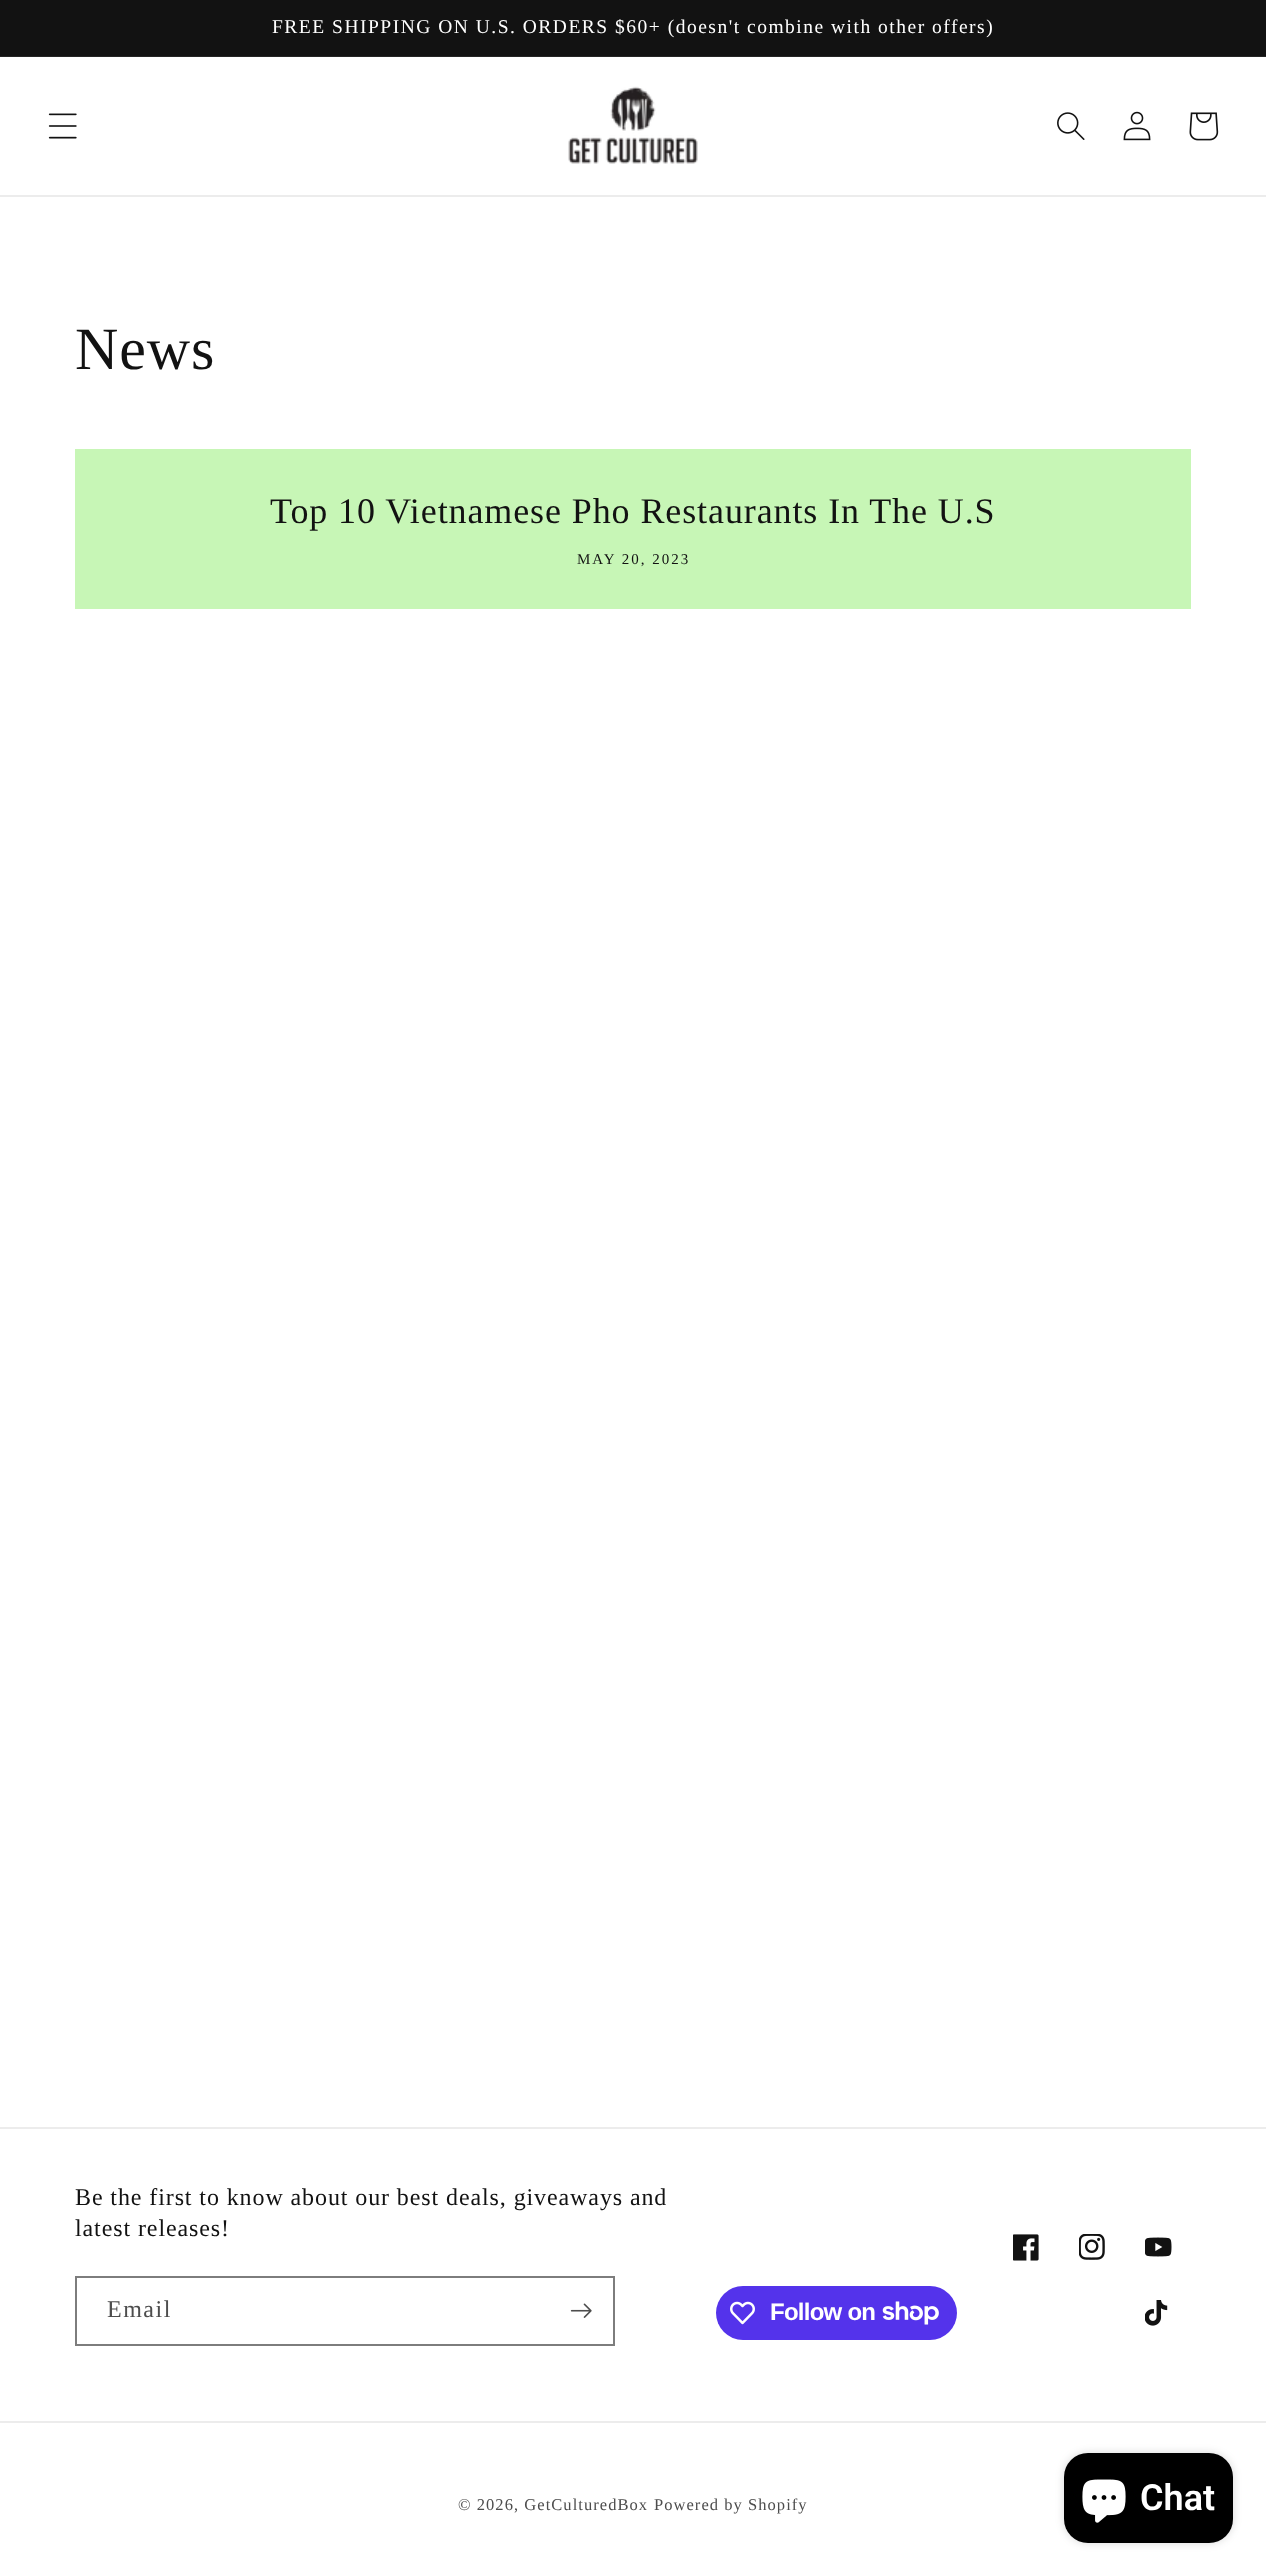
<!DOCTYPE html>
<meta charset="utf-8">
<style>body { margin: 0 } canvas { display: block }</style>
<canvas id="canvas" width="1266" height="2574"></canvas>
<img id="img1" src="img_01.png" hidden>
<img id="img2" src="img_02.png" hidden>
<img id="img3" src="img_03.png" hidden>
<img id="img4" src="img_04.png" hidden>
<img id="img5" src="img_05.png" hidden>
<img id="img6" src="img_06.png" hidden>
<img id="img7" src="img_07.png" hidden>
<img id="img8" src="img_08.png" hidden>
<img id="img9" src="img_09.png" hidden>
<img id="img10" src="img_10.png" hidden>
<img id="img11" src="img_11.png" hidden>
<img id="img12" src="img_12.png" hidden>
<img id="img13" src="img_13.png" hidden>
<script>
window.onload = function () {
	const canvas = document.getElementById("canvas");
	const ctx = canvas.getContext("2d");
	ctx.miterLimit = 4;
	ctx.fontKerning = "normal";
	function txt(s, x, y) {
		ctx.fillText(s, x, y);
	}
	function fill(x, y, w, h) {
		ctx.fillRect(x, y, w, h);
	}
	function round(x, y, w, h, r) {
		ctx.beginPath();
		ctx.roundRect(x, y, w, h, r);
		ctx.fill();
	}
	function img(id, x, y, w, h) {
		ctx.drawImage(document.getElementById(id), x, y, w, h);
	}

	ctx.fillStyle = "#FFFFFF";
	fill(0, 0, 1266, 2574);
	ctx.fillStyle = "#121212";
	fill(0, 0, 1266, 56);
	ctx.fillStyle = "#252525";
	fill(0, 56, 1266, 1);
	ctx.fillStyle = "#ECECEC";
	fill(0, 195, 1266, 2);
	img("img1", 48, 113, 29, 26);
	img("img2", 568, 86, 130, 78);
	img("img3", 1057, 112, 28, 28);
	img("img4", 1123, 111, 28, 30);
	img("img5", 1189, 112, 30, 29);
	ctx.fillStyle = "#C7F6B6";
	fill(75, 449, 1116, 160);
	ctx.fillStyle = "#ECECEC";
	fill(0, 2127, 1266, 2);
	ctx.strokeStyle = "#7D7D7D";
	ctx.lineWidth = 2;
	ctx.strokeRect(76, 2277, 538, 68);
	img("img6", 570, 2303, 22, 15);
	ctx.fillStyle = "#5433EB";
	round(716, 2286, 241, 54, 27);
	img("img7", 730, 2301, 25, 24);
	img("img8", 882, 2301, 57, 24);
	img("img9", 1013, 2234, 26, 27);
	img("img10", 1079, 2234, 26, 26);
	img("img11", 1145, 2237, 27, 20);
	img("img12", 1145, 2300, 23, 26);
	ctx.fillStyle = "#ECECEC";
	fill(0, 2421, 1266, 2);
	ctx.fillStyle = "rgba(0, 0, 0, 0.15)";
	ctx.filter = "blur(4px)";
	ctx.beginPath();
	ctx.roundRect(1064, 2453, 169, 90, 24);
	ctx.fill();
	ctx.filter = "none";
	ctx.fillStyle = "#000000";
	round(1064, 2453, 169, 90, 24);
	img("img13", 1082, 2479, 44, 44);
	ctx.letterSpacing = "1.5px";
	ctx.font = "19.5px Liberation Serif";
	ctx.fillStyle = "#FFFFFF";
	txt("FREE SHIPPING ON U.S. ORDERS $60+ (doesn't combine with other offers)", 272, 33);
	ctx.letterSpacing = "0.9px";
	ctx.font = "60px Liberation Serif";
	ctx.fillStyle = "#121212";
	txt("News", 75, 369);
	ctx.font = "36px Liberation Serif";
	txt("Top 10 Vietnamese Pho Restaurants In The U.S", 270, 523);
	ctx.letterSpacing = "2px";
	ctx.font = "15px Liberation Serif";
	txt("MAY 20, 2023", 577, 564);
	ctx.letterSpacing = "0.9px";
	ctx.font = "24px Liberation Serif";
	txt("Be the first to know about our best deals, giveaways and", 75, 2205);
	txt("latest releases!", 75, 2236);
	ctx.letterSpacing = "1.5px";
	ctx.fillStyle = "#4D4D4D";
	txt("Email", 107, 2317);
	ctx.letterSpacing = "-0.75px";
	ctx.font = "bold 24px Liberation Sans";
	ctx.fillStyle = "#FFFFFF";
	txt("Follow on", 770, 2320);
	ctx.letterSpacing = "1.05px";
	ctx.font = "16.5px Liberation Serif";
	ctx.fillStyle = "#4D4D4D";
	txt("© 2026, GetCulturedBox", 458, 2510);
	txt("Powered by Shopify", 654, 2510);
	ctx.letterSpacing = "0px";
	ctx.font = "600 36px Roboto";
	ctx.fillStyle = "#FFFFFF";
	txt("Chat", 1140, 2510);
};
</script>
